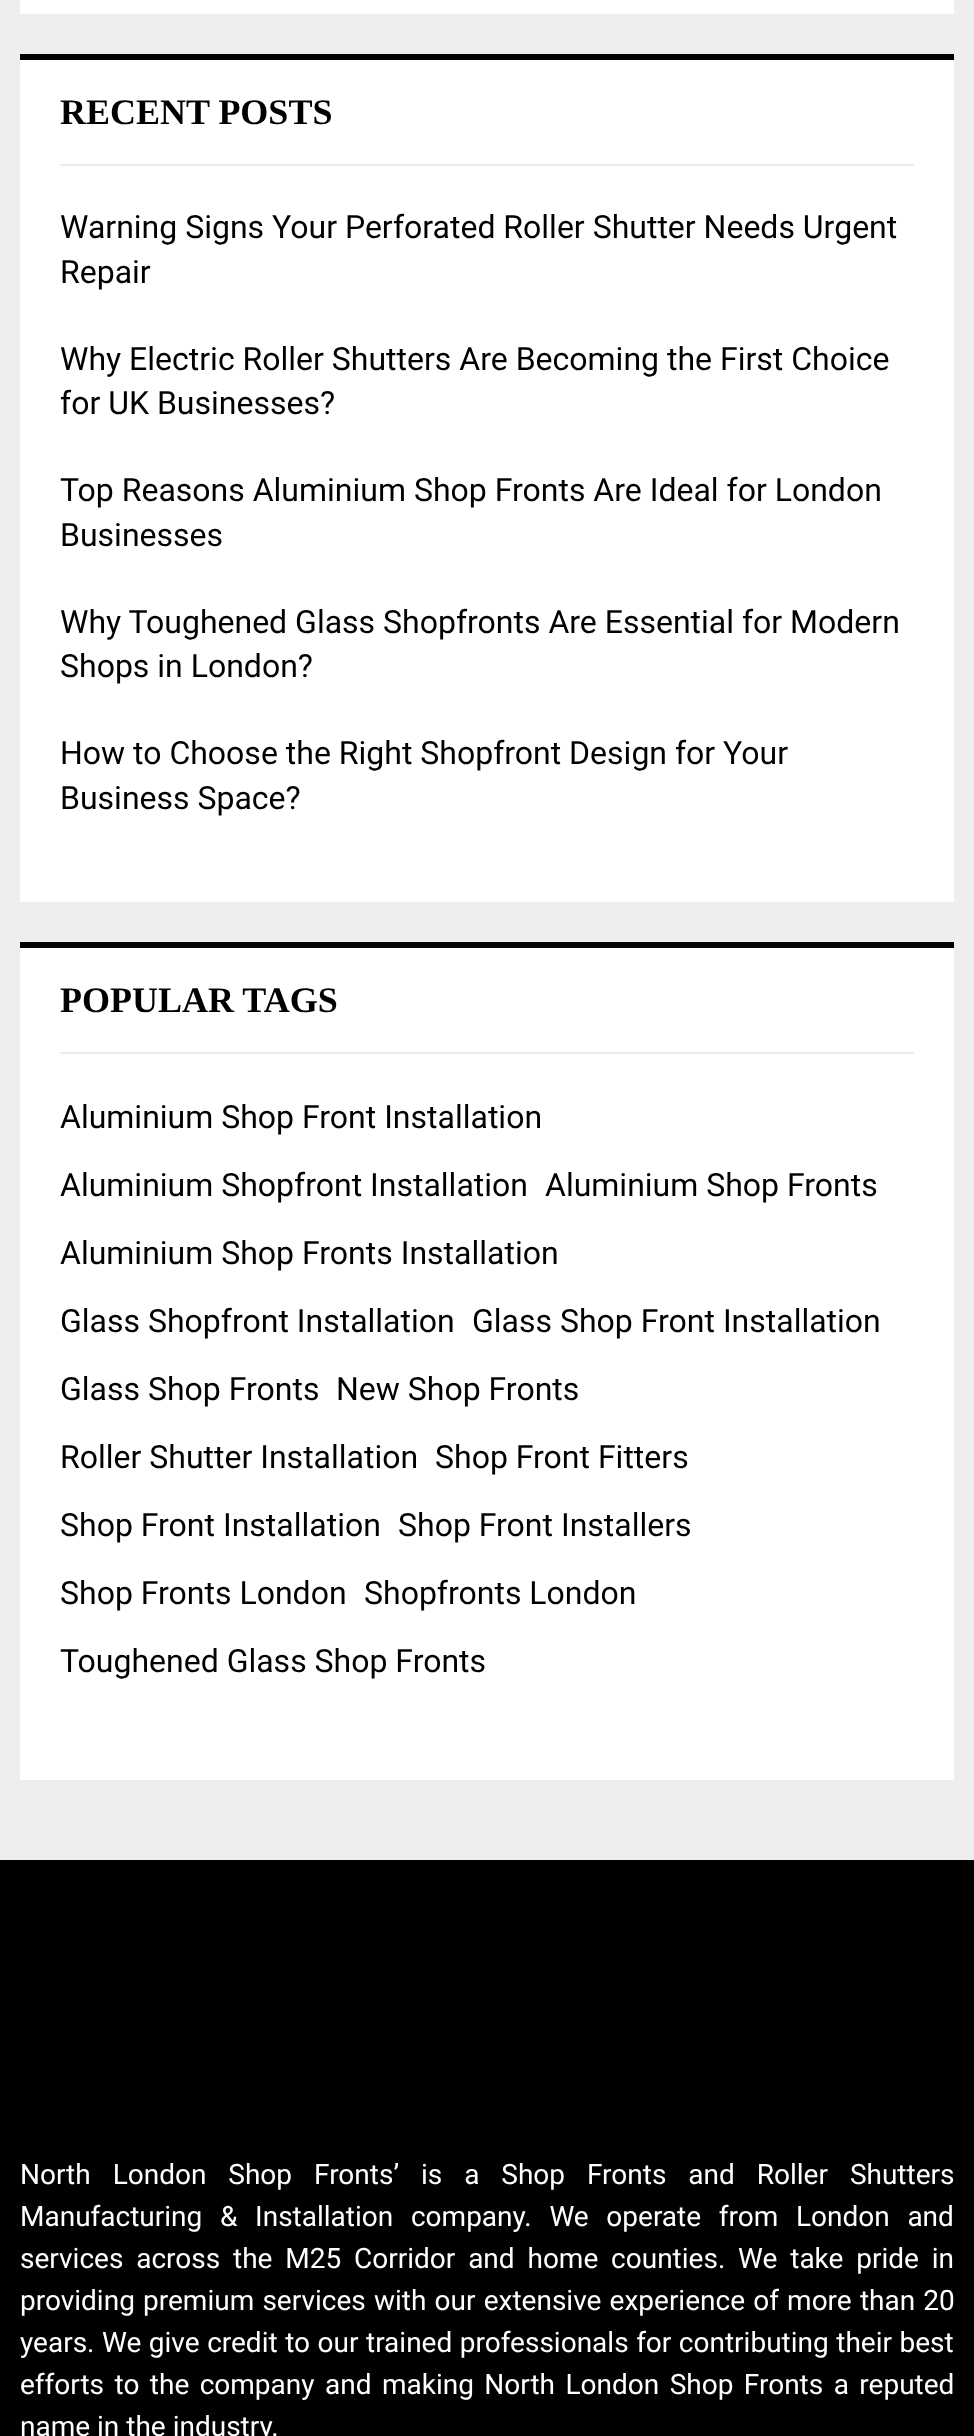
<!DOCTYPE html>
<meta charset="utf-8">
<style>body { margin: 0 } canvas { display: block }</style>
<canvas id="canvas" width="974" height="2436"></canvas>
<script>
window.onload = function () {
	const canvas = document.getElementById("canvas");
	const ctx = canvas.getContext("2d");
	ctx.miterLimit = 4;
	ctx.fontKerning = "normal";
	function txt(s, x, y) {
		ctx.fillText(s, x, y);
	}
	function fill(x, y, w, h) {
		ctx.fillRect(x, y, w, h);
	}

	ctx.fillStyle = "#EEEEEE";
	fill(0, 0, 974, 2436);
	ctx.fillStyle = "#FFFFFF";
	fill(20, 0, 934, 14);
	fill(20, 60, 934, 842);
	ctx.fillStyle = "#ECECEC";
	fill(60, 164, 854, 2);
	ctx.fillStyle = "#000000";
	fill(20, 54, 934, 6);
	ctx.fillStyle = "#FFFFFF";
	fill(20, 948, 934, 832);
	ctx.fillStyle = "#ECECEC";
	fill(60, 1052, 854, 2);
	ctx.fillStyle = "#000000";
	fill(20, 942, 934, 6);
	fill(0, 1860, 974, 576);
	ctx.font = "bold 36px Liberation Serif";
	txt("RECENT POSTS", 60, 124);
	ctx.font = "32px Roboto";
	txt("Warning Signs Your Perforated Roller Shutter Needs Urgent", 60, 238);
	txt("Repair", 60, 283);
	txt("Why Electric Roller Shutters Are Becoming the First Choice", 60, 370);
	txt("for UK Businesses?", 60, 414);
	txt("Top Reasons Aluminium Shop Fronts Are Ideal for London", 60, 501);
	txt("Businesses", 60, 546);
	txt("Why Toughened Glass Shopfronts Are Essential for Modern", 60, 633);
	txt("Shops in London?", 60, 677);
	txt("How to Choose the Right Shopfront Design for Your", 60, 764);
	txt("Business Space?", 60, 809);
	ctx.font = "bold 36px Liberation Serif";
	txt("POPULAR TAGS", 60, 1012);
	ctx.font = "32px Roboto";
	txt("Aluminium Shop Front Installation", 60, 1128);
	txt("Aluminium Shopfront Installation", 60, 1196);
	txt("Aluminium Shop Fronts", 545, 1196);
	txt("Aluminium Shop Fronts Installation", 60, 1264);
	txt("Glass Shopfront Installation", 60, 1332);
	txt("Glass Shop Front Installation", 472, 1332);
	txt("Glass Shop Fronts", 60, 1400);
	txt("New Shop Fronts", 336, 1400);
	txt("Roller Shutter Installation", 60, 1468);
	txt("Shop Front Fitters", 435, 1468);
	txt("Shop Front Installation", 60, 1536);
	txt("Shop Front Installers", 398, 1536);
	txt("Shop Fronts London", 60, 1604);
	txt("Shopfronts London", 364, 1604);
	txt("Toughened Glass Shop Fronts", 60, 1672);
	ctx.wordSpacing = "15px";
	ctx.font = "28px Roboto";
	ctx.fillStyle = "#FFFFFF";
	txt("North London Shop Fronts’ is a Shop Fronts and Roller Shutters", 20, 2184);
	ctx.wordSpacing = "10.75px";
	txt("Manufacturing & Installation company. We operate from London and", 20, 2226);
	ctx.wordSpacing = "5.9px";
	txt("services across the M25 Corridor and home counties. We take pride in", 20, 2268);
	ctx.wordSpacing = "1.25px";
	txt("providing premium services with our extensive experience of more than 20", 20, 2310);
	ctx.wordSpacing = "0.6px";
	txt("years. We give credit to our trained professionals for contributing their best", 20, 2352);
	ctx.wordSpacing = "3.5px";
	txt("efforts to the company and making North London Shop Fronts a reputed", 20, 2394);
	ctx.wordSpacing = "0px";
	txt("name in the industry.", 20, 2436);
};
</script>
